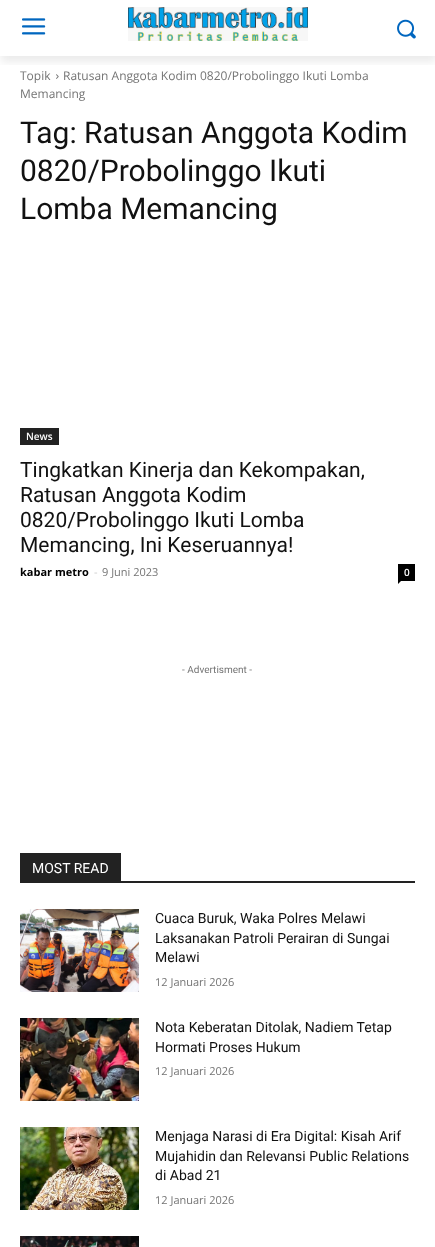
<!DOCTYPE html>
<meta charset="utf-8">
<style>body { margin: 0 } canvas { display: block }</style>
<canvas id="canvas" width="435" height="1247"></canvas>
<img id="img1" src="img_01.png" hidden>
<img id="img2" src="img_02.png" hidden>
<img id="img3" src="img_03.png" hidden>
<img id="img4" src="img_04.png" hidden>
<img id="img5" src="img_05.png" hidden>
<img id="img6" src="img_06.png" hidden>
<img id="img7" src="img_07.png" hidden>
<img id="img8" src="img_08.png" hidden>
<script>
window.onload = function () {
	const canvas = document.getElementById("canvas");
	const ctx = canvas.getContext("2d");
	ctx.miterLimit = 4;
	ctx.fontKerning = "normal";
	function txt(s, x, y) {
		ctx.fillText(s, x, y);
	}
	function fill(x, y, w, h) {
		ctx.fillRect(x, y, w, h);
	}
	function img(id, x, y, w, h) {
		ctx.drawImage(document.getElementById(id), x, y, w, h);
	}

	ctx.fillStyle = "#FFFFFF";
	fill(0, 0, 435, 1247);
	img("img1", 22, 18, 24, 17);
	img("img2", 128, 7, 180, 34);
	img("img3", 397, 19, 19, 20);
	img("img4", 56, 74, 3, 5);
	ctx.save();
	ctx.beginPath();
	ctx.rect(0, 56, 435, 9);
	ctx.clip();
	ctx.fillStyle = "rgba(0, 0, 0, 0.08)";
	ctx.filter = "blur(4px)";
	ctx.beginPath();
	ctx.rect(1, 6, 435, 56);
	ctx.fill();
	ctx.filter = "none";
	ctx.restore();
	ctx.fillStyle = "#222222";
	fill(20, 428, 39, 17);
	ctx.fillStyle = "#000000";
	fill(398, 564, 17, 17);
	ctx.beginPath();
	ctx.moveTo(398, 581);
	ctx.lineTo(401, 581);
	ctx.lineTo(398, 584);
	ctx.closePath();
	ctx.fill();
	ctx.fillStyle = "#222222";
	fill(20, 881, 395, 2);
	fill(20, 853, 101, 28);
	img("img5", 20, 909, 119, 83);
	img("img6", 20, 1018, 119, 83);
	img("img7", 20, 1127, 119, 83);
	img("img8", 20, 1236, 119, 11);
	ctx.font = "12px Open Sans";
	ctx.fillStyle = "#747474";
	txt("Topik", 20, 80);
	txt("Ratusan Anggota Kodim 0820/Probolinggo Ikuti Lomba", 63, 80);
	txt("Memancing", 20, 98);
	ctx.font = "30px Roboto";
	ctx.fillStyle = "#111111";
	txt("Tag: Ratusan Anggota Kodim", 20, 143);
	txt("0820/Probolinggo Ikuti", 20, 181);
	txt("Lomba Memancing", 20, 219);
	ctx.font = "600 10px Open Sans";
	ctx.fillStyle = "#FFFFFF";
	txt("News", 26, 440);
	ctx.font = "21px Roboto";
	ctx.fillStyle = "#111111";
	txt("Tingkatkan Kinerja dan Kekompakan,", 20, 477);
	txt("Ratusan Anggota Kodim", 20, 502);
	txt("0820/Probolinggo Ikuti Lomba", 20, 527);
	txt("Memancing, Ini Keseruannya!", 20, 552);
	ctx.font = "bold 11px Open Sans";
	ctx.fillStyle = "#000000";
	txt("kabar metro", 20, 576);
	ctx.font = "11px Open Sans";
	ctx.fillStyle = "#CCCCCC";
	txt("-", 94, 576);
	ctx.fillStyle = "#747474";
	txt("9 Juni 2023", 102, 576);
	ctx.font = "600 10px Open Sans";
	ctx.fillStyle = "#FFFFFF";
	txt("0", 404, 576);
	ctx.font = "10px Roboto";
	ctx.fillStyle = "#747474";
	txt("- Advertisment -", 182, 673);
	ctx.font = "14px Roboto";
	ctx.fillStyle = "#FFFFFF";
	txt("MOST READ", 32, 873);
	ctx.fillStyle = "#111111";
	txt("Cuaca Buruk, Waka Polres Melawi", 155, 923);
	txt("Laksanakan Patroli Perairan di Sungai", 155, 943);
	txt("Melawi", 155, 962);
	ctx.font = "11px Open Sans";
	ctx.fillStyle = "#747474";
	txt("12 Januari 2026", 155, 986);
	ctx.font = "14px Roboto";
	ctx.fillStyle = "#111111";
	txt("Nota Keberatan Ditolak, Nadiem Tetap", 155, 1032);
	txt("Hormati Proses Hukum", 155, 1052);
	ctx.font = "11px Open Sans";
	ctx.fillStyle = "#747474";
	txt("12 Januari 2026", 155, 1075);
	ctx.font = "14px Roboto";
	ctx.fillStyle = "#111111";
	txt("Menjaga Narasi di Era Digital: Kisah Arif", 155, 1141);
	txt("Mujahidin dan Relevansi Public Relations", 155, 1161);
	txt("di Abad 21", 155, 1180);
	ctx.font = "11px Open Sans";
	ctx.fillStyle = "#747474";
	txt("12 Januari 2026", 155, 1204);
};
</script>
